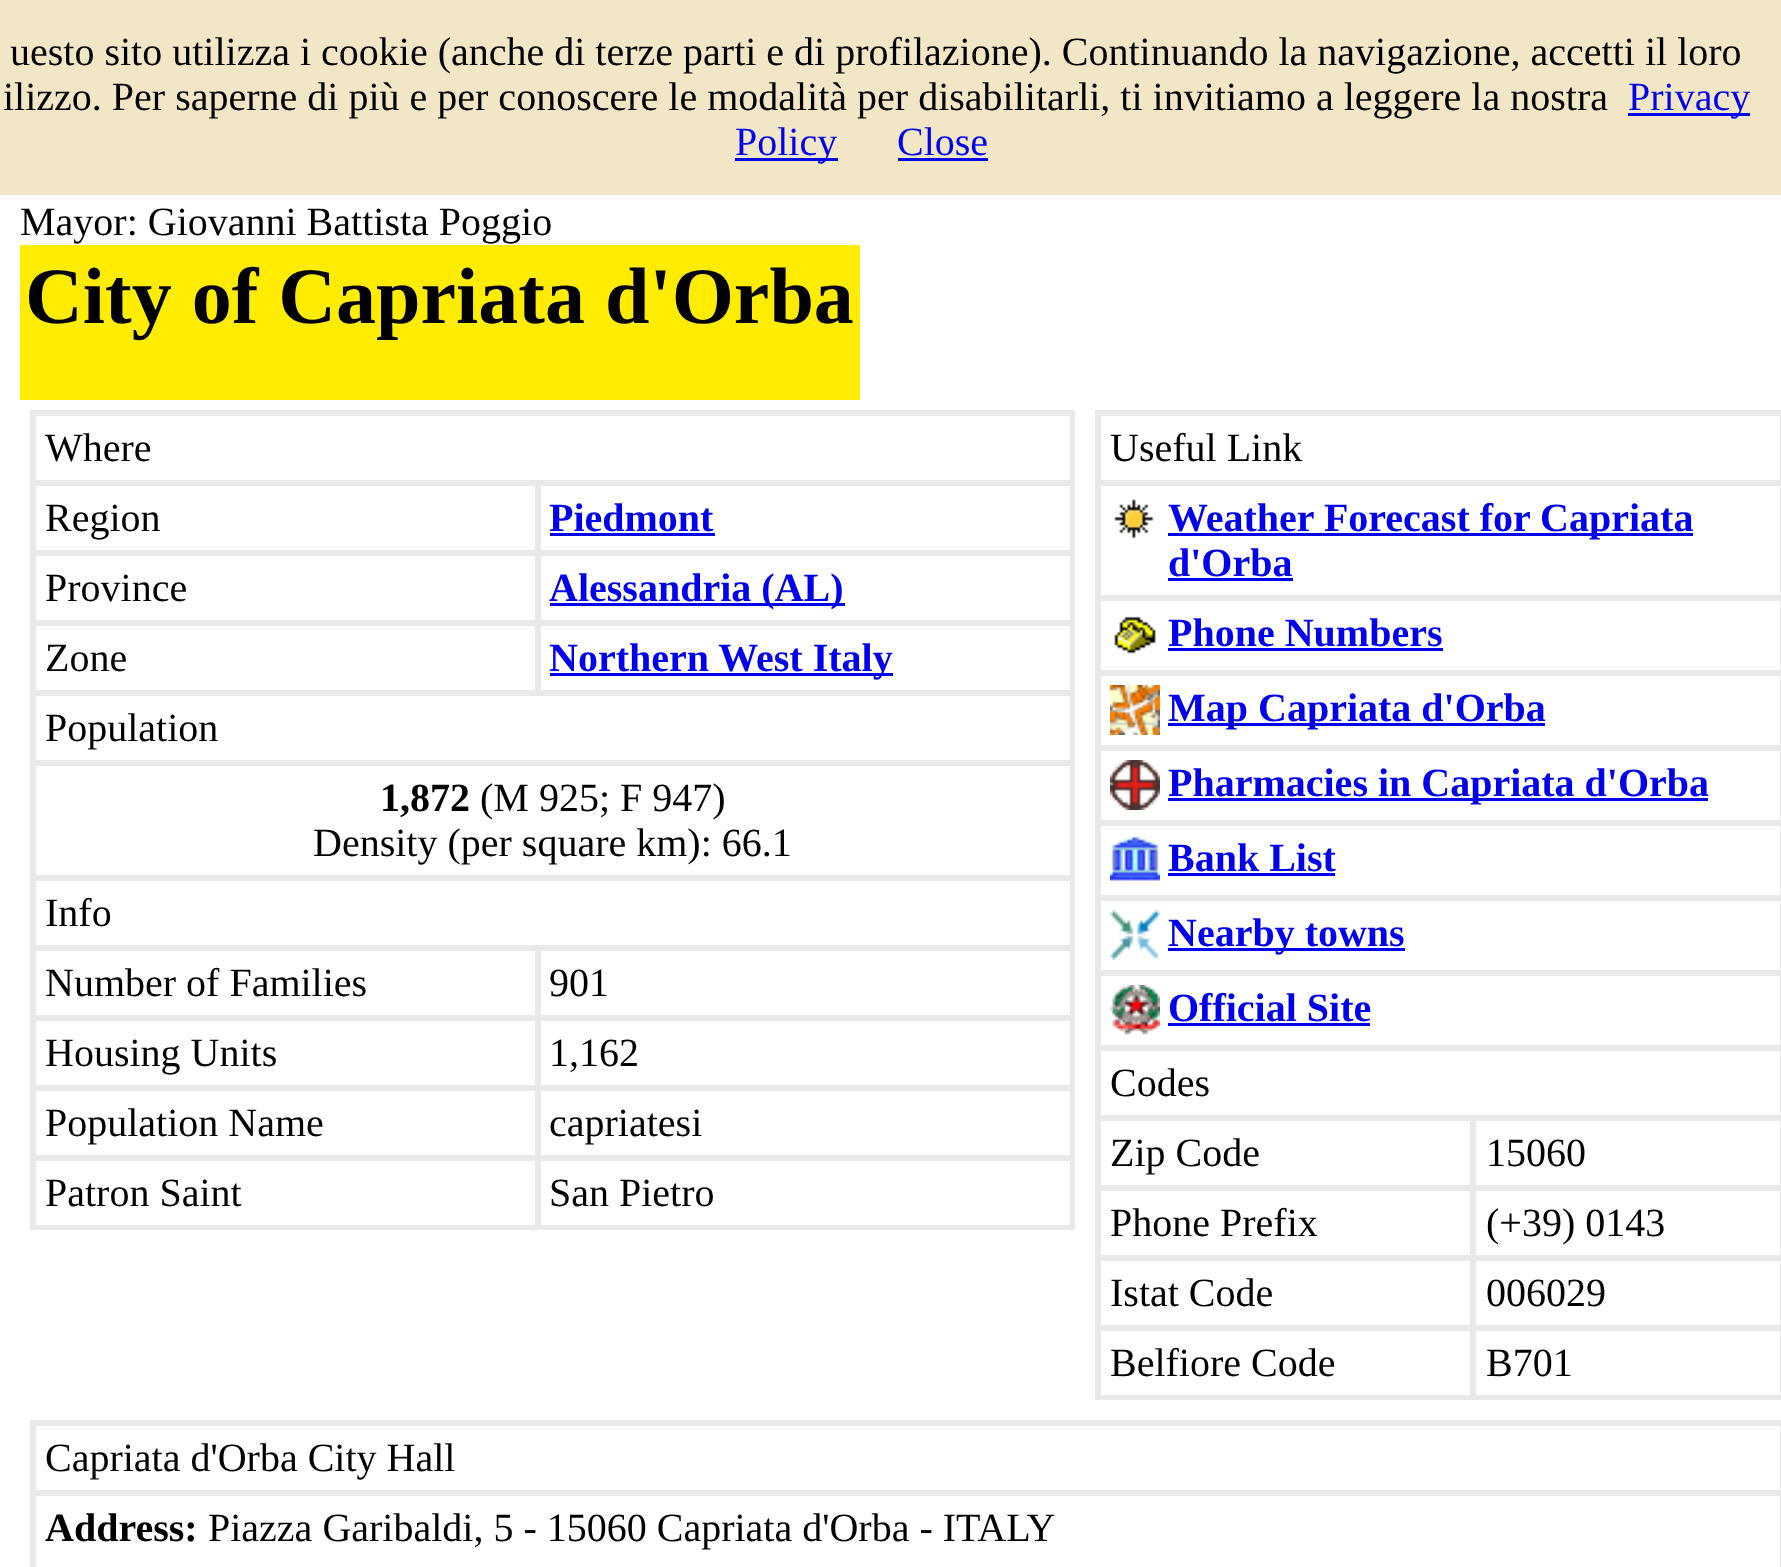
<!DOCTYPE html>
<meta charset="utf-8">
<style>body { margin: 0 } canvas { display: block }</style>
<canvas id="canvas" width="1781" height="1567"></canvas>
<img id="img1" src="img_01.png" hidden>
<img id="img2" src="img_02.png" hidden>
<img id="img3" src="img_03.png" hidden>
<img id="img4" src="img_04.png" hidden>
<img id="img5" src="img_05.png" hidden>
<img id="img6" src="img_06.png" hidden>
<img id="img7" src="img_07.png" hidden>
<script>
window.onload = function () {
	const canvas = document.getElementById("canvas");
	const ctx = canvas.getContext("2d");
	ctx.miterLimit = 4;
	ctx.fontKerning = "normal";
	function txt(s, x, y) {
		ctx.fillText(s, x, y);
	}
	function fill(x, y, w, h) {
		ctx.fillRect(x, y, w, h);
	}
	function img(id, x, y, w, h) {
		ctx.drawImage(document.getElementById(id), x, y, w, h);
	}

	ctx.fillStyle = "#FFFFFF";
	fill(0, 0, 1781, 1567);
	ctx.fillStyle = "#F1E6C6";
	fill(0, 0, 1781, 195);
	ctx.fillStyle = "#0000EE";
	fill(1628, 113, 122, 3);
	fill(735, 158, 103, 3);
	fill(898, 158, 90, 3);
	ctx.fillStyle = "#FFEC00";
	fill(20, 245, 840, 155);
	ctx.strokeStyle = "#E9E9E9";
	ctx.lineWidth = 3;
	ctx.strokeRect(31.5, 411.5, 1042, 817);
	ctx.strokeRect(34.5, 414.5, 1037, 67);
	ctx.strokeRect(34.5, 484.5, 502, 67);
	ctx.strokeRect(539.5, 484.5, 532, 67);
	ctx.fillStyle = "#0000EE";
	fill(550, 533, 165, 3);
	ctx.strokeRect(34.5, 554.5, 502, 67);
	ctx.strokeRect(539.5, 554.5, 532, 67);
	fill(550, 603, 295, 3);
	ctx.strokeRect(34.5, 624.5, 502, 67);
	ctx.strokeRect(539.5, 624.5, 532, 67);
	fill(550, 673, 343, 3);
	ctx.strokeRect(34.5, 694.5, 1037, 67);
	ctx.strokeRect(34.5, 764.5, 1037, 112);
	ctx.strokeRect(34.5, 879.5, 1037, 67);
	ctx.strokeRect(34.5, 949.5, 502, 67);
	ctx.strokeRect(539.5, 949.5, 532, 67);
	ctx.strokeRect(34.5, 1019.5, 502, 67);
	ctx.strokeRect(539.5, 1019.5, 532, 67);
	ctx.strokeRect(34.5, 1089.5, 502, 67);
	ctx.strokeRect(539.5, 1089.5, 532, 67);
	ctx.strokeRect(34.5, 1159.5, 502, 67);
	ctx.strokeRect(539.5, 1159.5, 532, 67);
	ctx.strokeRect(1096.5, 411.5, 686, 987);
	ctx.strokeRect(1099.5, 414.5, 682, 67);
	ctx.strokeRect(1099.5, 484.5, 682, 112);
	img("img1", 1114, 499, 40, 40);
	fill(1168, 533, 525, 3);
	fill(1168, 578, 125, 3);
	ctx.strokeRect(1099.5, 599.5, 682, 72);
	img("img2", 1114, 616, 42, 38);
	fill(1168, 648, 275, 3);
	ctx.strokeRect(1099.5, 674.5, 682, 72);
	img("img3", 1110, 685, 50, 50);
	fill(1168, 723, 377, 3);
	ctx.strokeRect(1099.5, 749.5, 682, 72);
	img("img4", 1110, 760, 50, 50);
	fill(1168, 798, 540, 3);
	ctx.strokeRect(1099.5, 824.5, 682, 72);
	img("img5", 1110, 836, 50, 45);
	fill(1168, 873, 167, 3);
	ctx.strokeRect(1099.5, 899.5, 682, 72);
	img("img6", 1110, 910, 50, 50);
	fill(1168, 948, 237, 3);
	ctx.strokeRect(1099.5, 974.5, 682, 72);
	img("img7", 1110, 985, 50, 50);
	fill(1168, 1023, 202, 3);
	ctx.strokeRect(1099.5, 1049.5, 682, 67);
	ctx.strokeRect(1099.5, 1119.5, 372, 67);
	ctx.strokeRect(1474.5, 1119.5, 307, 67);
	ctx.strokeRect(1099.5, 1189.5, 372, 67);
	ctx.strokeRect(1474.5, 1189.5, 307, 67);
	ctx.strokeRect(1099.5, 1259.5, 372, 67);
	ctx.strokeRect(1474.5, 1259.5, 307, 67);
	ctx.strokeRect(1099.5, 1329.5, 372, 67);
	ctx.strokeRect(1474.5, 1329.5, 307, 67);
	ctx.strokeRect(31.5, 1421.5, 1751, 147);
	ctx.strokeRect(34.5, 1424.5, 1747, 67);
	ctx.strokeRect(34.5, 1494.5, 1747, 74);
	ctx.font = "40px Liberation Serif";
	ctx.fillStyle = "#000000";
	txt("uesto sito utilizza i cookie (anche di terze parti e di profilazione). Continuando la navigazione, accetti il loro", 10, 65);
	txt("ilizzo. Per saperne di più e per conoscere le modalità per disabilitarli, ti invitiamo a leggere la nostra", 3, 110);
	ctx.fillStyle = "#0000EE";
	txt("Privacy", 1628, 110);
	txt("Policy", 735, 155);
	txt("Close", 897, 155);
	ctx.fillStyle = "#000000";
	txt("Mayor: Giovanni Battista Poggio", 20, 235);
	ctx.font = "bold 80px Liberation Serif";
	txt("City of Capriata d'Orba", 25, 323);
	ctx.font = "40px Liberation Serif";
	txt("Where", 45, 461);
	txt("Region", 45, 531);
	ctx.font = "bold 40px Liberation Serif";
	ctx.fillStyle = "#0000EE";
	txt("Piedmont", 549, 531);
	ctx.font = "40px Liberation Serif";
	ctx.fillStyle = "#000000";
	txt("Province", 45, 601);
	ctx.font = "bold 40px Liberation Serif";
	ctx.fillStyle = "#0000EE";
	txt("Alessandria (AL)", 549, 601);
	ctx.font = "40px Liberation Serif";
	ctx.fillStyle = "#000000";
	txt("Zone", 45, 671);
	ctx.font = "bold 40px Liberation Serif";
	ctx.fillStyle = "#0000EE";
	txt("Northern West Italy", 549, 671);
	ctx.font = "40px Liberation Serif";
	ctx.fillStyle = "#000000";
	txt("Population", 45, 741);
	ctx.font = "bold 40px Liberation Serif";
	txt("1,872", 380, 811);
	ctx.font = "40px Liberation Serif";
	txt("(M 925; F 947)", 480, 811);
	txt("Density (per square km): 66.1", 313, 856);
	txt("Info", 45, 926);
	txt("Number of Families", 45, 996);
	txt("901", 549, 996);
	txt("Housing Units", 45, 1066);
	txt("1,162", 549, 1066);
	txt("Population Name", 45, 1136);
	txt("capriatesi", 549, 1136);
	txt("Patron Saint", 45, 1206);
	txt("San Pietro", 549, 1206);
	txt("Useful Link", 1110, 461);
	ctx.font = "bold 40px Liberation Serif";
	ctx.fillStyle = "#0000EE";
	txt("Weather Forecast for Capriata", 1168, 531);
	txt("d'Orba", 1168, 576);
	txt("Phone Numbers", 1168, 646);
	txt("Map Capriata d'Orba", 1168, 721);
	txt("Pharmacies in Capriata d'Orba", 1168, 796);
	txt("Bank List", 1168, 871);
	txt("Nearby towns", 1168, 946);
	txt("Official Site", 1168, 1021);
	ctx.font = "40px Liberation Serif";
	ctx.fillStyle = "#000000";
	txt("Codes", 1110, 1096);
	txt("Zip Code", 1110, 1166);
	txt("15060", 1486, 1166);
	txt("Phone Prefix", 1110, 1236);
	txt("(+39) 0143", 1486, 1236);
	txt("Istat Code", 1110, 1306);
	txt("006029", 1486, 1306);
	txt("Belfiore Code", 1110, 1376);
	txt("B701", 1486, 1376);
	txt("Capriata d'Orba City Hall", 45, 1471);
	ctx.font = "bold 40px Liberation Serif";
	txt("Address:", 45, 1541);
	ctx.font = "40px Liberation Serif";
	txt("Piazza Garibaldi, 5 - 15060 Capriata d'Orba - ITALY", 208, 1541);
};
</script>
